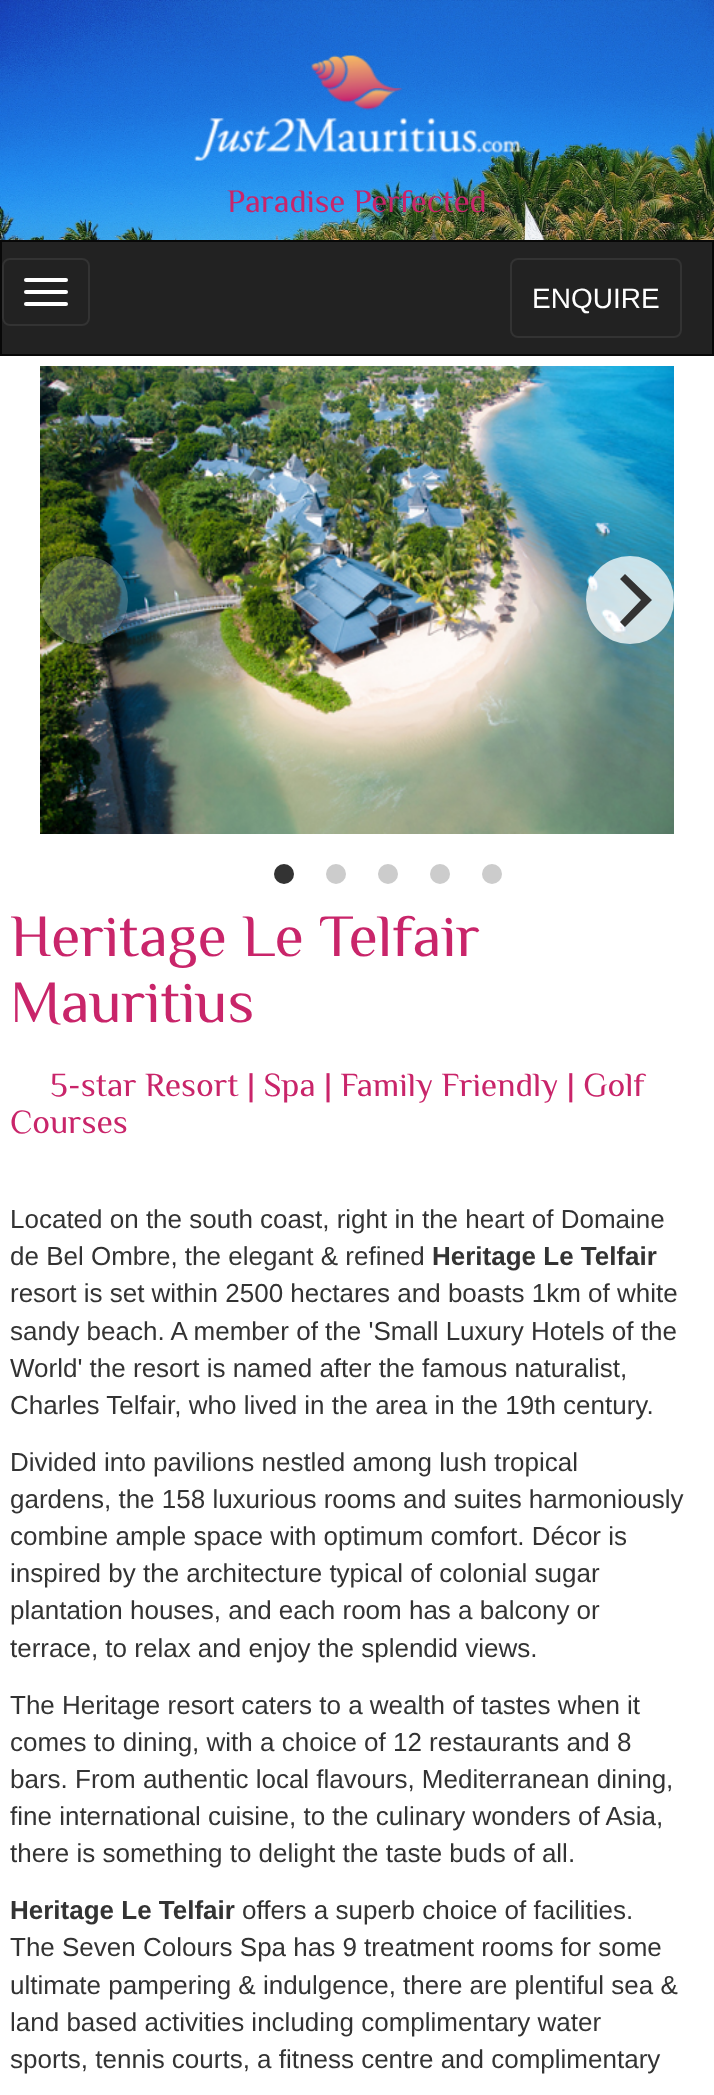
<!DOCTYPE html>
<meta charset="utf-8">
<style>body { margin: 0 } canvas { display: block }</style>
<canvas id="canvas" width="714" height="2095"></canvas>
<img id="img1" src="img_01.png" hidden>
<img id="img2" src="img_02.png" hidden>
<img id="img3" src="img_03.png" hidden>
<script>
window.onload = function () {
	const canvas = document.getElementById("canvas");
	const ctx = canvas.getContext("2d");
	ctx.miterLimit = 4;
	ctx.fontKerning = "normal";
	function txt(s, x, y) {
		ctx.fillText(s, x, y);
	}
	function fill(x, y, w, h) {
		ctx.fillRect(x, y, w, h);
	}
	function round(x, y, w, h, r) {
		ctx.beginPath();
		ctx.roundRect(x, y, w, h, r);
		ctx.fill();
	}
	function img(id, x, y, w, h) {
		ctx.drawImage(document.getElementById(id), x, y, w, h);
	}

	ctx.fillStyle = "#FFFFFF";
	fill(0, 0, 714, 2095);
	img("img1", 0, 0, 714, 240);
	img("img2", 194, 55, 327, 106);
	ctx.fillStyle = "#222222";
	ctx.beginPath();
	ctx.rect(1, 241, 712, 114);
	ctx.fill();
	ctx.strokeStyle = "#080808";
	ctx.lineWidth = 2;
	ctx.stroke();
	ctx.beginPath();
	ctx.roundRect(3, 259, 86, 66, 7);
	ctx.strokeStyle = "#333333";
	ctx.stroke();
	ctx.fillStyle = "#FFFFFF";
	round(24, 278, 44, 4, 2);
	round(24, 290, 44, 4, 2);
	round(24, 302, 44, 4, 2);
	ctx.beginPath();
	ctx.roundRect(511, 259, 170, 78, 7);
	ctx.stroke();
	img("img3", 40, 366, 634, 468);
	ctx.fillStyle = "rgba(255, 255, 255, 0.22)";
	ctx.beginPath();
	ctx.arc(84, 600, 44, 0, Math.PI * 2);
	ctx.fill();
	ctx.fillStyle = "rgba(51, 51, 51, 0.3)";
	ctx.beginPath();
	ctx.moveTo(63, 600);
	ctx.lineTo(90, 627);
	ctx.lineTo(95, 622);
	ctx.lineTo(74, 600);
	ctx.lineTo(95, 579);
	ctx.lineTo(90, 574);
	ctx.closePath();
	ctx.fill();
	ctx.fillStyle = "rgba(255, 255, 255, 0.75)";
	ctx.beginPath();
	ctx.arc(630, 600, 44, 0, Math.PI * 2);
	ctx.fill();
	ctx.fillStyle = "#333333";
	ctx.beginPath();
	ctx.moveTo(652, 600);
	ctx.lineTo(625, 574);
	ctx.lineTo(620, 579);
	ctx.lineTo(641, 600);
	ctx.lineTo(620, 622);
	ctx.lineTo(625, 627);
	ctx.closePath();
	ctx.fill();
	ctx.beginPath();
	ctx.arc(284, 874, 10, 0, Math.PI * 2);
	ctx.fill();
	ctx.fillStyle = "#CCCCCC";
	ctx.beginPath();
	ctx.arc(336, 874, 10, 0, Math.PI * 2);
	ctx.fill();
	ctx.beginPath();
	ctx.arc(388, 874, 10, 0, Math.PI * 2);
	ctx.fill();
	ctx.beginPath();
	ctx.arc(440, 874, 10, 0, Math.PI * 2);
	ctx.fill();
	ctx.beginPath();
	ctx.arc(492, 874, 10, 0, Math.PI * 2);
	ctx.fill();
	ctx.font = "32.75px Philosopher";
	ctx.fillStyle = "#C9256A";
	txt("Paradise Perfected", 227, 212);
	ctx.font = "28px Liberation Sans";
	ctx.fillStyle = "#FFFFFF";
	txt("ENQUIRE", 532, 308);
	ctx.font = "60px Philosopher";
	ctx.fillStyle = "#C9256A";
	txt("Heritage Le Telfair", 10, 956);
	txt("Mauritius", 10, 1022);
	ctx.font = "33.6px Philosopher";
	txt("5-star Resort | Spa | Family Friendly | Golf", 50, 1096);
	txt("Courses", 10, 1133);
	ctx.font = "26px Liberation Sans";
	ctx.fillStyle = "#333333";
	txt("Located on the south coast, right in the heart of Domaine", 10, 1228);
	txt("de Bel Ombre, the elegant & refined", 10, 1265);
	ctx.font = "bold 26px Liberation Sans";
	txt("Heritage Le Telfair", 432, 1265);
	ctx.font = "26px Liberation Sans";
	txt("resort is set within 2500 hectares and boasts 1km of white", 10, 1302);
	txt("sandy beach. A member of the 'Small Luxury Hotels of the", 10, 1340);
	txt("World' the resort is named after the famous naturalist,", 10, 1377);
	txt("Charles Telfair, who lived in the area in the 19th century.", 10, 1414);
	txt("Divided into pavilions nestled among lush tropical", 10, 1471);
	txt("gardens, the 158 luxurious rooms and suites harmoniously", 10, 1508);
	txt("combine ample space with optimum comfort. Décor is", 10, 1545);
	txt("inspired by the architecture typical of colonial sugar", 10, 1582);
	txt("plantation houses, and each room has a balcony or", 10, 1619);
	txt("terrace, to relax and enjoy the splendid views.", 10, 1657);
	txt("The Heritage resort caters to a wealth of tastes when it", 10, 1714);
	txt("comes to dining, with a choice of 12 restaurants and 8", 10, 1751);
	txt("bars. From authentic local flavours, Mediterranean dining,", 10, 1788);
	txt("fine international cuisine, to the culinary wonders of Asia,", 10, 1825);
	txt("there is something to delight the taste buds of all.", 10, 1862);
	ctx.font = "bold 26px Liberation Sans";
	txt("Heritage Le Telfair", 10, 1919);
	ctx.font = "26px Liberation Sans";
	txt("offers a superb choice of facilities.", 242, 1919);
	txt("The Seven Colours Spa has 9 treatment rooms for some", 10, 1956);
	txt("ultimate pampering & indulgence, there are plentiful sea &", 10, 1994);
	txt("land based activities including complimentary water", 10, 2031);
	txt("sports, tennis courts, a fitness centre and complimentary", 10, 2068);
};
</script>
